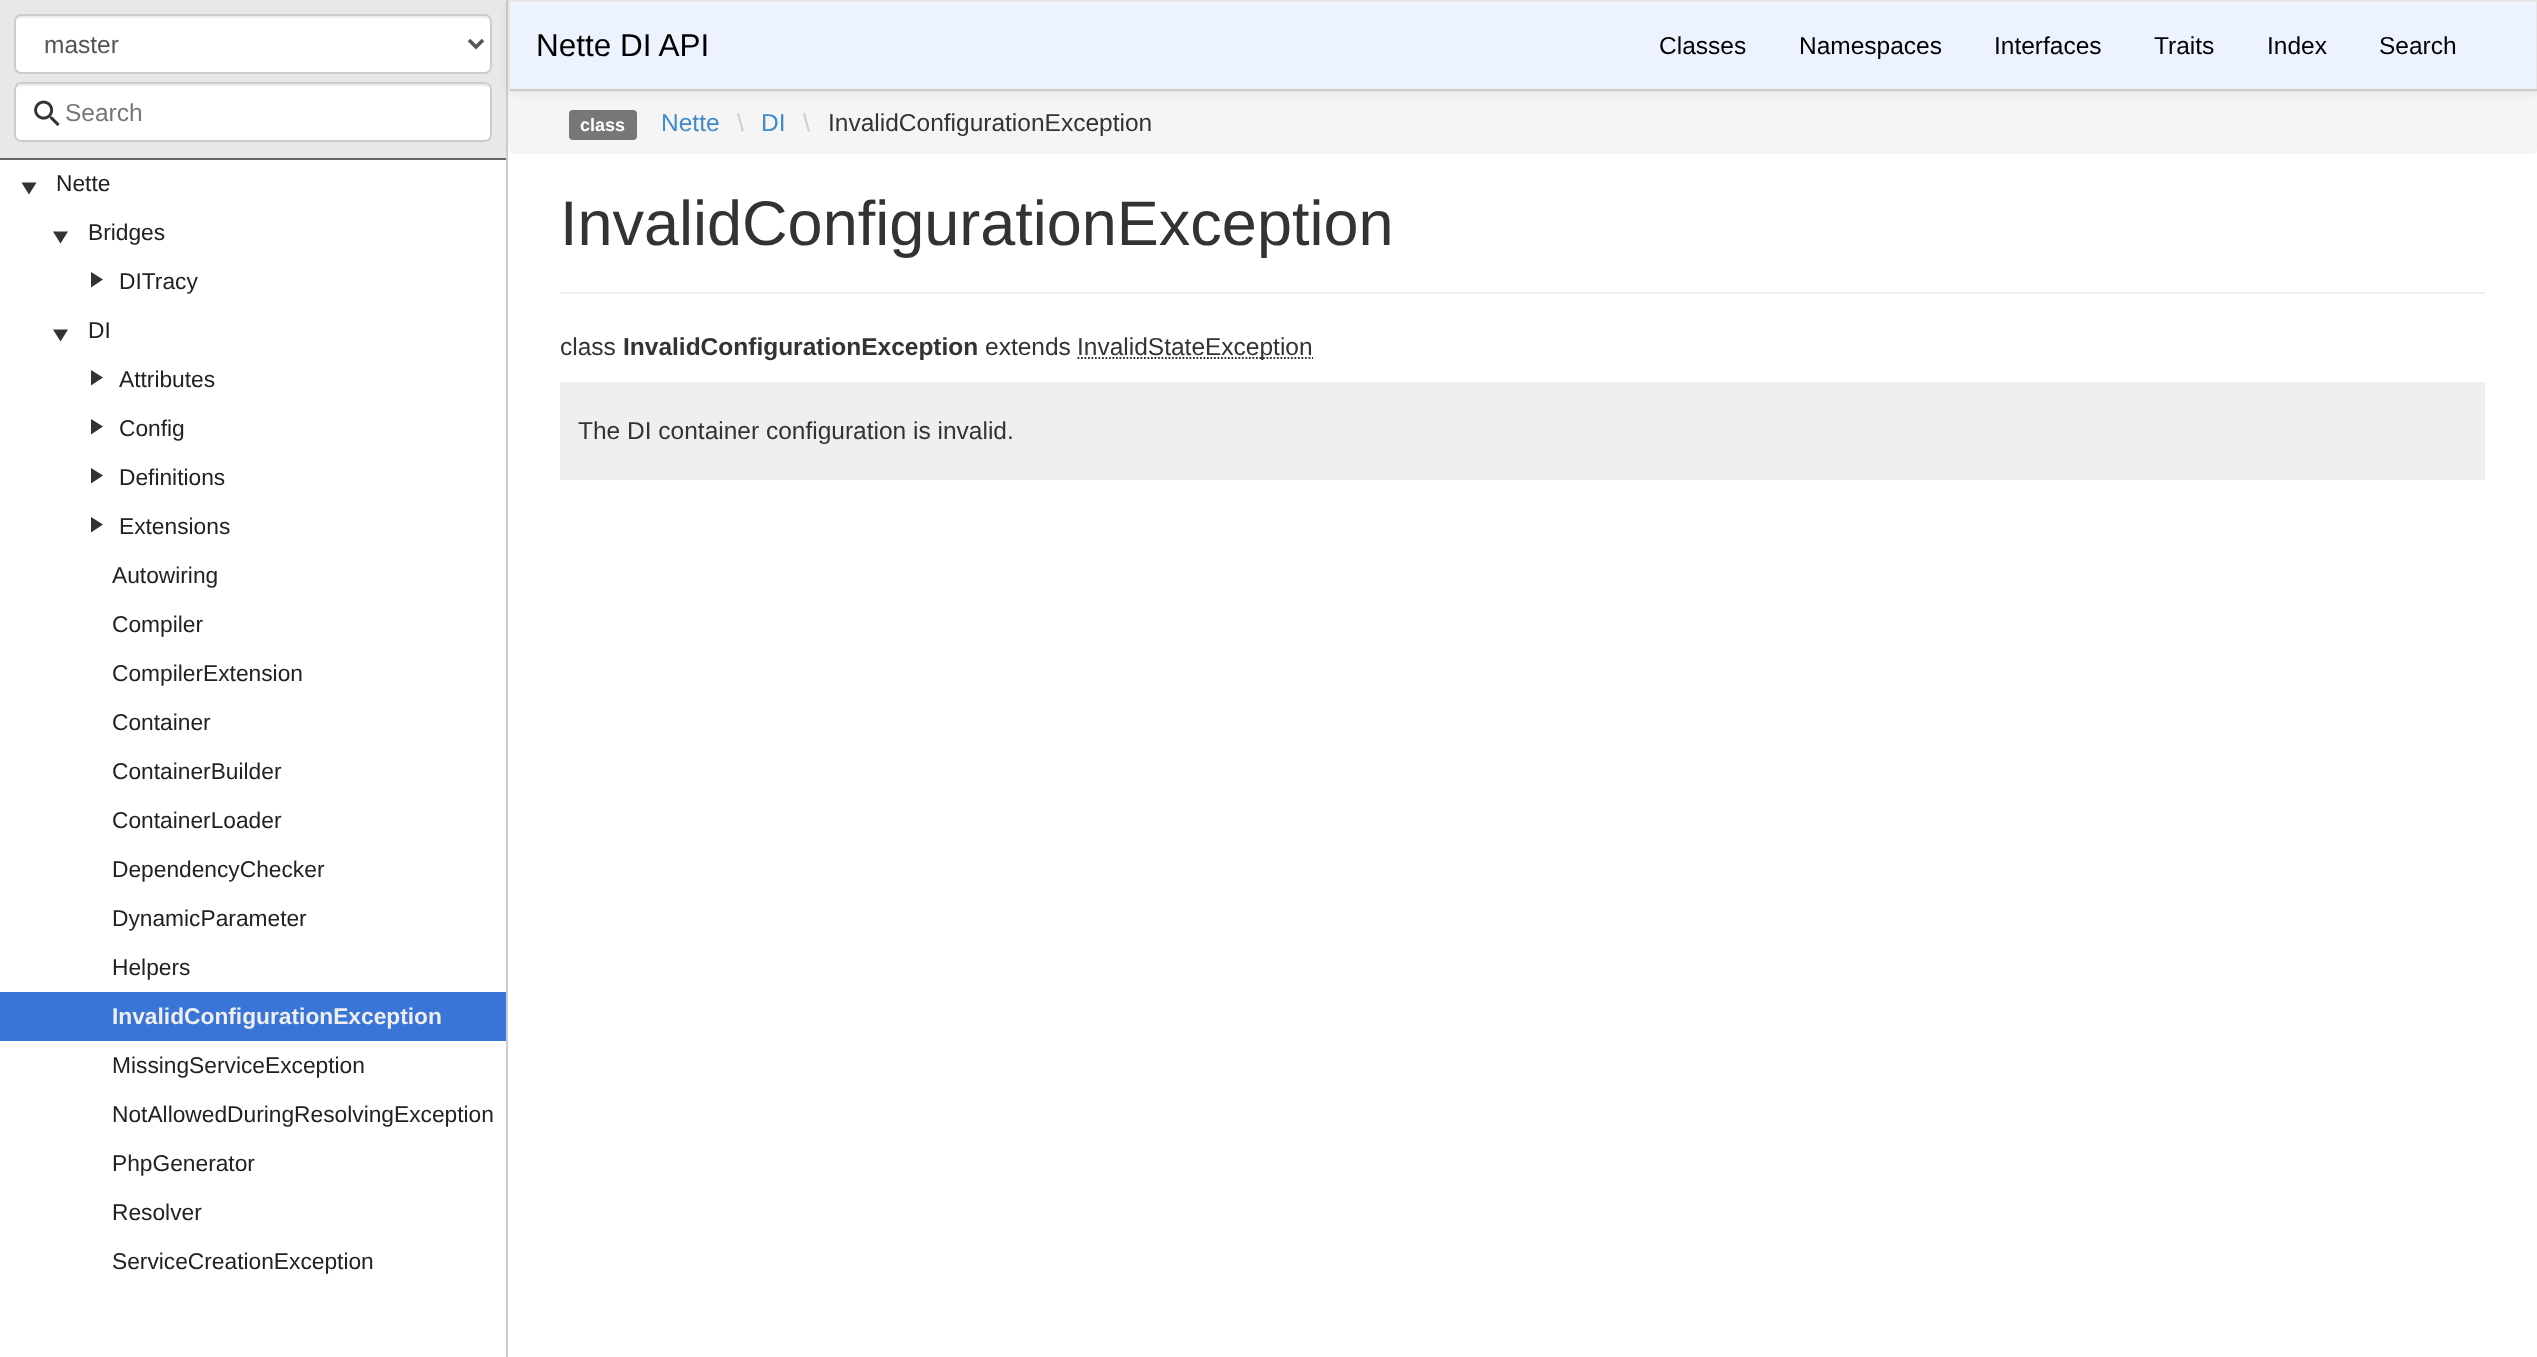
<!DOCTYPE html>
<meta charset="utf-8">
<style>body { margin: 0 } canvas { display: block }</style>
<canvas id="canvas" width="2537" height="1357"></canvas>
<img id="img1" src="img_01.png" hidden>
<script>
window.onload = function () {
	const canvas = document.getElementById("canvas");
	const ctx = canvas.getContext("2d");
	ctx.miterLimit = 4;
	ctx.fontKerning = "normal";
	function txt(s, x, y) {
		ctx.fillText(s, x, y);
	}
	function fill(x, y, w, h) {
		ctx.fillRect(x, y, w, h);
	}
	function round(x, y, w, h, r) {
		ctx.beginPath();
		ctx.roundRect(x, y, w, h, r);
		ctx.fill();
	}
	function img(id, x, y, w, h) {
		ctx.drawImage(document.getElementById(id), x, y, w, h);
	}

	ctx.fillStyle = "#FFFFFF";
	fill(0, 0, 2537, 1357);
	ctx.fillStyle = "#CCCCCC";
	fill(506, 0, 2, 1357);
	ctx.fillStyle = "#E8E8E8";
	fill(0, 0, 506, 158);
	ctx.fillStyle = "#666666";
	fill(0, 158, 506, 2);
	ctx.fillStyle = "#FFFFFF";
	round(14, 14, 478, 60, 7);
	ctx.fillStyle = "#ECECEC";
	ctx.beginPath();
	ctx.moveTo(21, 18);
	ctx.lineTo(485, 18);
	ctx.bezierCurveTo(488, 18, 490, 20, 490, 23);
	ctx.lineTo(490, 21);
	ctx.bezierCurveTo(490, 18, 488, 16, 485, 16);
	ctx.lineTo(21, 16);
	ctx.bezierCurveTo(18, 16, 16, 18, 16, 21);
	ctx.lineTo(16, 23);
	ctx.bezierCurveTo(16, 20, 18, 18, 21, 18);
	ctx.closePath();
	ctx.fill();
	ctx.beginPath();
	ctx.roundRect(15, 15, 476, 58, 6);
	ctx.strokeStyle = "#CCCCCC";
	ctx.lineWidth = 2;
	ctx.stroke();
	ctx.beginPath();
	ctx.moveTo(469, 40);
	ctx.lineTo(476, 47);
	ctx.lineTo(483, 40);
	ctx.strokeStyle = "#555555";
	ctx.lineWidth = 3.5;
	ctx.stroke();
	ctx.fillStyle = "#FFFFFF";
	round(14, 82, 478, 60, 7);
	ctx.fillStyle = "#ECECEC";
	ctx.beginPath();
	ctx.moveTo(21, 86);
	ctx.lineTo(485, 86);
	ctx.bezierCurveTo(488, 86, 490, 88, 490, 91);
	ctx.lineTo(490, 89);
	ctx.bezierCurveTo(490, 86, 488, 84, 485, 84);
	ctx.lineTo(21, 84);
	ctx.bezierCurveTo(18, 84, 16, 86, 16, 89);
	ctx.lineTo(16, 91);
	ctx.bezierCurveTo(16, 88, 18, 86, 21, 86);
	ctx.closePath();
	ctx.fill();
	ctx.beginPath();
	ctx.roundRect(15, 83, 476, 58, 6);
	ctx.strokeStyle = "#CCCCCC";
	ctx.lineWidth = 2;
	ctx.stroke();
	img("img1", 34, 100, 26, 26);
	ctx.fillStyle = "#333333";
	ctx.beginPath();
	ctx.moveTo(91, 272);
	ctx.lineTo(91, 287.5);
	ctx.lineTo(103, 279.5);
	ctx.closePath();
	ctx.fill();
	ctx.beginPath();
	ctx.moveTo(68, 329.5);
	ctx.lineTo(53, 329.5);
	ctx.lineTo(60.5, 341.5);
	ctx.closePath();
	ctx.fill();
	ctx.beginPath();
	ctx.moveTo(91, 370);
	ctx.lineTo(91, 385.5);
	ctx.lineTo(103, 377.5);
	ctx.closePath();
	ctx.fill();
	ctx.beginPath();
	ctx.moveTo(91, 419);
	ctx.lineTo(91, 434.5);
	ctx.lineTo(103, 426.5);
	ctx.closePath();
	ctx.fill();
	ctx.beginPath();
	ctx.moveTo(91, 468);
	ctx.lineTo(91, 483.5);
	ctx.lineTo(103, 475.5);
	ctx.closePath();
	ctx.fill();
	ctx.beginPath();
	ctx.moveTo(91, 517);
	ctx.lineTo(91, 532.5);
	ctx.lineTo(103, 524.5);
	ctx.closePath();
	ctx.fill();
	ctx.fillStyle = "#3875D7";
	fill(0, 992, 506, 49);
	ctx.fillStyle = "#F5F5F5";
	ctx.beginPath();
	ctx.moveTo(508, 91);
	ctx.lineTo(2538, 91);
	ctx.lineTo(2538, 147);
	ctx.bezierCurveTo(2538, 151, 2535, 154, 2531, 154);
	ctx.lineTo(515, 154);
	ctx.bezierCurveTo(511, 154, 508, 151, 508, 147);
	ctx.closePath();
	ctx.fill();
	ctx.fillStyle = "rgba(0, 0, 0, 0.07)";
	ctx.filter = "blur(4.5px)";
	ctx.beginPath();
	ctx.rect(508, 2, 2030, 91);
	ctx.fill();
	ctx.filter = "none";
	ctx.fillStyle = "#EDF3FE";
	fill(510, 4, 2026, 85);
	ctx.fillStyle = "#F0F5FE";
	fill(509, 2, 2027, 2);
	ctx.fillStyle = "#E7E7E7";
	fill(508, 0, 2029, 2);
	fill(2536, 0, 1, 91);
	ctx.fillStyle = "#CCCCCC";
	fill(508, 89, 2029, 2);
	ctx.fillStyle = "#E7E7E7";
	fill(508, 0, 2, 91);
	ctx.fillStyle = "#777777";
	round(569, 110, 68, 30, 4);
	ctx.fillStyle = "#EEEEEE";
	fill(560, 292, 1925, 2);
	ctx.beginPath();
	ctx.moveTo(1077.5, 358);
	ctx.lineTo(1313, 358);
	ctx.strokeStyle = "#333333";
	ctx.lineWidth = 1.8;
	ctx.setLineDash([1.75, 1.75]);
	ctx.stroke();
	ctx.fillStyle = "#EFEFEF";
	fill(560, 382, 1925, 98);
	ctx.font = "24.5px Liberation Sans";
	ctx.fillStyle = "#555555";
	txt("master", 44, 53);
	ctx.fillStyle = "#777777";
	txt("Search", 65, 121);
	ctx.font = "22.75px Liberation Sans";
	ctx.fillStyle = "#222222";
	txt("Nette", 56, 191);
	ctx.fillStyle = "#333333";
	ctx.beginPath();
	ctx.moveTo(36.5, 182.5);
	ctx.lineTo(21.5, 182.5);
	ctx.lineTo(29, 194.5);
	ctx.closePath();
	ctx.moveTo(68, 231.5);
	ctx.lineTo(53, 231.5);
	ctx.lineTo(60.5, 243.5);
	ctx.closePath();
	ctx.fill();
	ctx.fillStyle = "#222222";
	txt("Bridges", 88, 240);
	txt("DITracy", 119, 289);
	txt("DI", 88, 338);
	txt("Attributes", 119, 387);
	txt("Config", 119, 436);
	txt("Definitions", 119, 485);
	txt("Extensions", 119, 534);
	txt("Autowiring", 112, 583);
	txt("Compiler", 112, 632);
	txt("CompilerExtension", 112, 681);
	txt("Container", 112, 730);
	txt("ContainerBuilder", 112, 779);
	txt("ContainerLoader", 112, 828);
	txt("DependencyChecker", 112, 877);
	txt("DynamicParameter", 112, 926);
	txt("Helpers", 112, 975);
	ctx.font = "bold 22.75px Liberation Sans";
	ctx.fillStyle = "#EEEEEE";
	txt("InvalidConfigurationException", 112, 1024);
	ctx.font = "22.75px Liberation Sans";
	ctx.fillStyle = "#222222";
	txt("MissingServiceException", 112, 1073);
	txt("NotAllowedDuringResolvingException", 112, 1122);
	txt("PhpGenerator", 112, 1171);
	txt("Resolver", 112, 1220);
	txt("ServiceCreationException", 112, 1269);
	ctx.font = "31.5px Liberation Sans";
	ctx.fillStyle = "#000000";
	txt("Nette DI API", 536, 56);
	ctx.font = "24.5px Liberation Sans";
	txt("Classes", 1659, 54);
	txt("Namespaces", 1799, 54);
	txt("Interfaces", 1994, 54);
	txt("Traits", 2154, 54);
	txt("Index", 2267, 54);
	txt("Search", 2379, 54);
	ctx.font = "bold 18px Liberation Sans";
	ctx.fillStyle = "#FFFFFF";
	txt("class", 580, 131);
	ctx.font = "24.5px Liberation Sans";
	ctx.fillStyle = "#428BCA";
	txt("Nette", 661, 131);
	ctx.fillStyle = "#CCCCCC";
	txt("\\", 737, 131);
	ctx.fillStyle = "#428BCA";
	txt("DI", 761, 131);
	ctx.fillStyle = "#CCCCCC";
	txt("\\", 803, 131);
	ctx.fillStyle = "#333333";
	txt("InvalidConfigurationException", 828, 131);
	ctx.font = "63px Liberation Sans";
	txt("InvalidConfigurationException", 560, 245);
	ctx.font = "24.5px Liberation Sans";
	txt("class", 560, 355);
	ctx.font = "bold 24.5px Liberation Sans";
	txt("InvalidConfigurationException", 623, 355);
	ctx.font = "24.5px Liberation Sans";
	txt("extends", 985, 355);
	txt("InvalidStateException", 1077, 355);
	txt("The DI container configuration is invalid.", 578, 439);
};
</script>
